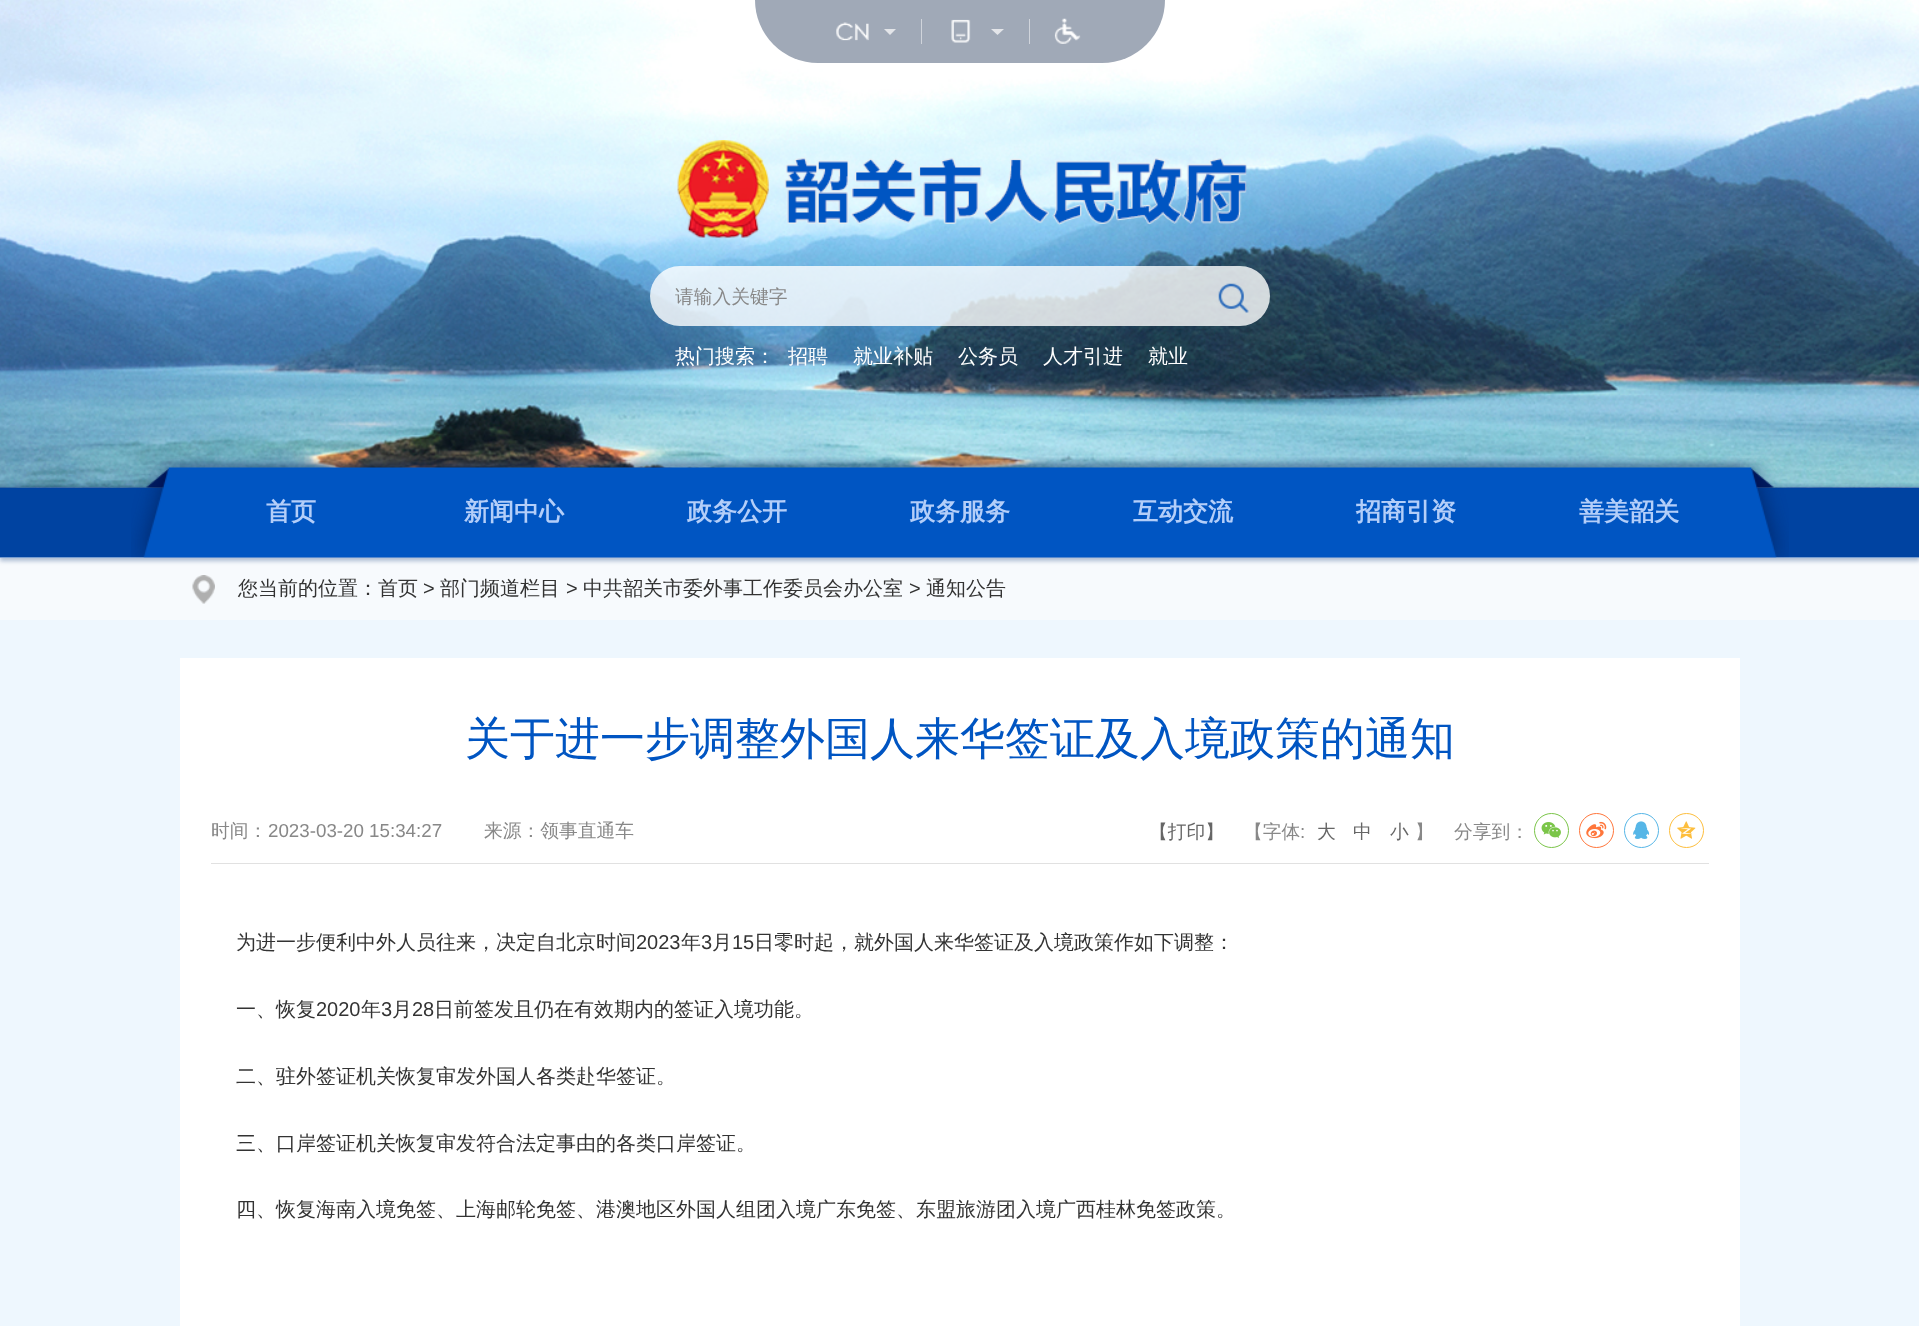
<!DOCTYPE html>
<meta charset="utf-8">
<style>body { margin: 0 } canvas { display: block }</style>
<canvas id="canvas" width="1919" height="1326"></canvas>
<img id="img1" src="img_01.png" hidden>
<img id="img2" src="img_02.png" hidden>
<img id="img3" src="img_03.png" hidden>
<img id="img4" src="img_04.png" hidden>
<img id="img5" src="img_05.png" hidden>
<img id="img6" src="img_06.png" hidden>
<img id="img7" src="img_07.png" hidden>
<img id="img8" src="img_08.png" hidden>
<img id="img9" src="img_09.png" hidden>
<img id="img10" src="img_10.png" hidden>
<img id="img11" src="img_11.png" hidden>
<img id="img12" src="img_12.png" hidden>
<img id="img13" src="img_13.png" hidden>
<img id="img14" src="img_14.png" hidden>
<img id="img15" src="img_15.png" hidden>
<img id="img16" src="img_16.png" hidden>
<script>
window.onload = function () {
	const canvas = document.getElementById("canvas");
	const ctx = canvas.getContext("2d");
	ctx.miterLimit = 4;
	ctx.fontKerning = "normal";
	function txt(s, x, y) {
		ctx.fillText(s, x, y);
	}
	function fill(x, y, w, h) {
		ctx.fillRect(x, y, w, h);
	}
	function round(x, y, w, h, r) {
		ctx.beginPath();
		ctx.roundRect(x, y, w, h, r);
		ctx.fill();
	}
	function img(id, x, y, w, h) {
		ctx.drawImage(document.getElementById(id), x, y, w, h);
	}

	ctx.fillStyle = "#EEF7FE";
	fill(0, 0, 1919, 1326);
	img("img1", 0, 487, 1919, 1);
	img("img2", 0, 0, 1919, 488);
	ctx.fillStyle = "#A0A9B7";
	ctx.beginPath();
	ctx.roundRect(755, 0, 410, 63, [0, 0, 63, 63]);
	ctx.fill();
	img("img3", 836, 22, 33, 19);
	ctx.fillStyle = "#E3E5E9";
	ctx.beginPath();
	ctx.moveTo(884, 29);
	ctx.lineTo(896, 29);
	ctx.lineTo(890, 35);
	ctx.closePath();
	ctx.fill();
	ctx.fillStyle = "#D0D4DB";
	fill(921, 19, 1, 25);
	img("img4", 951, 19, 20, 24);
	ctx.fillStyle = "#E3E5E9";
	ctx.beginPath();
	ctx.moveTo(991, 29);
	ctx.lineTo(1004, 29);
	ctx.lineTo(997.5, 35);
	ctx.closePath();
	ctx.fill();
	ctx.fillStyle = "#D0D4DB";
	fill(1029, 19, 1, 25);
	img("img5", 1054, 18, 27, 26);
	img("img6", 677, 140, 570, 98);
	ctx.fillStyle = "rgba(255, 255, 255, 0.8)";
	round(650, 266, 620, 60, 30);
	img("img7", 1218, 283, 31, 30);
	ctx.fillStyle = "#F7FAFD";
	fill(0, 558, 1919, 62);
	ctx.save();
	ctx.beginPath();
	ctx.moveTo(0, 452);
	ctx.lineTo(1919, 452);
	ctx.lineTo(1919, 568);
	ctx.lineTo(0, 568);
	ctx.closePath();
	ctx.moveTo(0, 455);
	ctx.lineTo(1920, 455);
	ctx.lineTo(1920, 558);
	ctx.lineTo(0, 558);
	ctx.closePath();
	ctx.clip("evenodd");
	ctx.fillStyle = "rgba(0, 45, 113, 0.3)";
	ctx.filter = "blur(2px)";
	ctx.beginPath();
	ctx.rect(0, 459, 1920, 102);
	ctx.fill();
	ctx.filter = "none";
	ctx.restore();
	img("img8", 0, 483, 1919, 75);
	img("img9", 180, 457, 1560, 101);
	img("img10", 131, 458, 49, 100);
	img("img11", 1740, 458, 49, 100);
	img("img12", 192, 575, 23, 29);
	ctx.fillStyle = "#FFFFFF";
	fill(180, 658, 1560, 668);
	ctx.fillStyle = "#E1E1E1";
	fill(211, 863, 1498, 1);
	ctx.beginPath();
	ctx.arc(1551.5, 830.5, 17, 0, Math.PI * 2);
	ctx.strokeStyle = "#7BC549";
	ctx.stroke();
	img("img13", 1541, 822, 20, 16);
	ctx.beginPath();
	ctx.arc(1596.5, 830.5, 17, 0, Math.PI * 2);
	ctx.strokeStyle = "#FF763B";
	ctx.stroke();
	img("img14", 1586, 821, 21, 18);
	ctx.beginPath();
	ctx.arc(1641.5, 830.5, 17, 0, Math.PI * 2);
	ctx.strokeStyle = "#56B6E7";
	ctx.stroke();
	img("img15", 1633, 821, 17, 18);
	ctx.beginPath();
	ctx.arc(1686.5, 830.5, 17, 0, Math.PI * 2);
	ctx.strokeStyle = "#FDBE3D";
	ctx.stroke();
	img("img16", 1677, 821, 19, 18);
	ctx.font = "500 18.75px WenQuanYi Zen Hei";
	ctx.fillStyle = "#888888";
	txt("请输入关键字", 675, 303);
	ctx.font = "500 20px WenQuanYi Zen Hei";
	ctx.fillStyle = "#FFFFFF";
	txt("热门搜索：", 675, 363);
	txt("招聘", 788, 363);
	txt("就业补贴", 853, 363);
	txt("公务员", 958, 363);
	txt("人才引进", 1043, 363);
	txt("就业", 1148, 363);
	ctx.font = "bold 25px WenQuanYi Zen Hei";
	ctx.fillStyle = "#B3CEF9";
	txt("首页", 266, 520);
	txt("新闻中心", 464, 520);
	txt("政务公开", 687, 520);
	txt("政务服务", 910, 520);
	txt("互动交流", 1133, 520);
	txt("招商引资", 1356, 520);
	txt("善美韶关", 1579, 520);
	ctx.font = "500 20px WenQuanYi Zen Hei";
	ctx.fillStyle = "#333333";
	txt("您当前的位置：首页", 238, 595);
	ctx.font = "20px Liberation Sans";
	txt(">", 423, 595);
	ctx.font = "500 20px WenQuanYi Zen Hei";
	txt("部门频道栏目", 440, 595);
	ctx.font = "20px Liberation Sans";
	txt(">", 566, 595);
	ctx.font = "500 20px WenQuanYi Zen Hei";
	txt("中共韶关市委外事工作委员会办公室", 583, 595);
	ctx.font = "20px Liberation Sans";
	txt(">", 909, 595);
	ctx.font = "500 20px WenQuanYi Zen Hei";
	txt("通知公告", 926, 595);
	ctx.font = "500 45px WenQuanYi Zen Hei";
	ctx.fillStyle = "#0055C2";
	txt("关于进一步调整外国人来华签证及入境政策的通知", 465, 754);
	ctx.font = "500 18.75px WenQuanYi Zen Hei";
	ctx.fillStyle = "#888888";
	txt("时间：", 211, 837);
	ctx.font = "18.75px Liberation Sans";
	txt("2023-03-20 15:34:27", 268, 837);
	ctx.font = "500 18.75px WenQuanYi Zen Hei";
	txt("来源：领事直通车", 484, 837);
	ctx.fillStyle = "#666666";
	txt("【打印】", 1149, 838);
	ctx.fillStyle = "#888888";
	txt("【字体", 1244, 838);
	ctx.font = "18.75px Liberation Sans";
	txt(":", 1300, 838);
	ctx.font = "500 18.75px WenQuanYi Zen Hei";
	ctx.fillStyle = "#666666";
	txt("大", 1317, 838);
	txt("中", 1353, 838);
	txt("小", 1390, 838);
	ctx.fillStyle = "#888888";
	txt("】", 1415, 838);
	txt("分享到：", 1454, 838);
	ctx.font = "500 20px WenQuanYi Zen Hei";
	ctx.fillStyle = "#333333";
	txt("为进一步便利中外人员往来，决定自北京时间", 236, 949);
	ctx.font = "20px Liberation Sans";
	txt("2023", 636, 949);
	ctx.font = "500 20px WenQuanYi Zen Hei";
	txt("年", 681, 949);
	ctx.font = "20px Liberation Sans";
	txt("3", 701, 949);
	ctx.font = "500 20px WenQuanYi Zen Hei";
	txt("月", 712, 949);
	ctx.font = "20px Liberation Sans";
	txt("15", 732, 949);
	ctx.font = "500 20px WenQuanYi Zen Hei";
	txt("日零时起，就外国人来华签证及入境政策作如下调整：", 754, 949);
	txt("一、恢复", 236, 1016);
	ctx.font = "20px Liberation Sans";
	txt("2020", 316, 1016);
	ctx.font = "500 20px WenQuanYi Zen Hei";
	txt("年", 361, 1016);
	ctx.font = "20px Liberation Sans";
	txt("3", 381, 1016);
	ctx.font = "500 20px WenQuanYi Zen Hei";
	txt("月", 392, 1016);
	ctx.font = "20px Liberation Sans";
	txt("28", 412, 1016);
	ctx.font = "500 20px WenQuanYi Zen Hei";
	txt("日前签发且仍在有效期内的签证入境功能。", 434, 1016);
	txt("二、驻外签证机关恢复审发外国人各类赴华签证。", 236, 1083);
	txt("三、口岸签证机关恢复审发符合法定事由的各类口岸签证。", 236, 1150);
	txt("四、恢复海南入境免签、上海邮轮免签、港澳地区外国人组团入境广东免签、东盟旅游团入境广西桂林免签政策。", 236, 1216);
};
</script>
